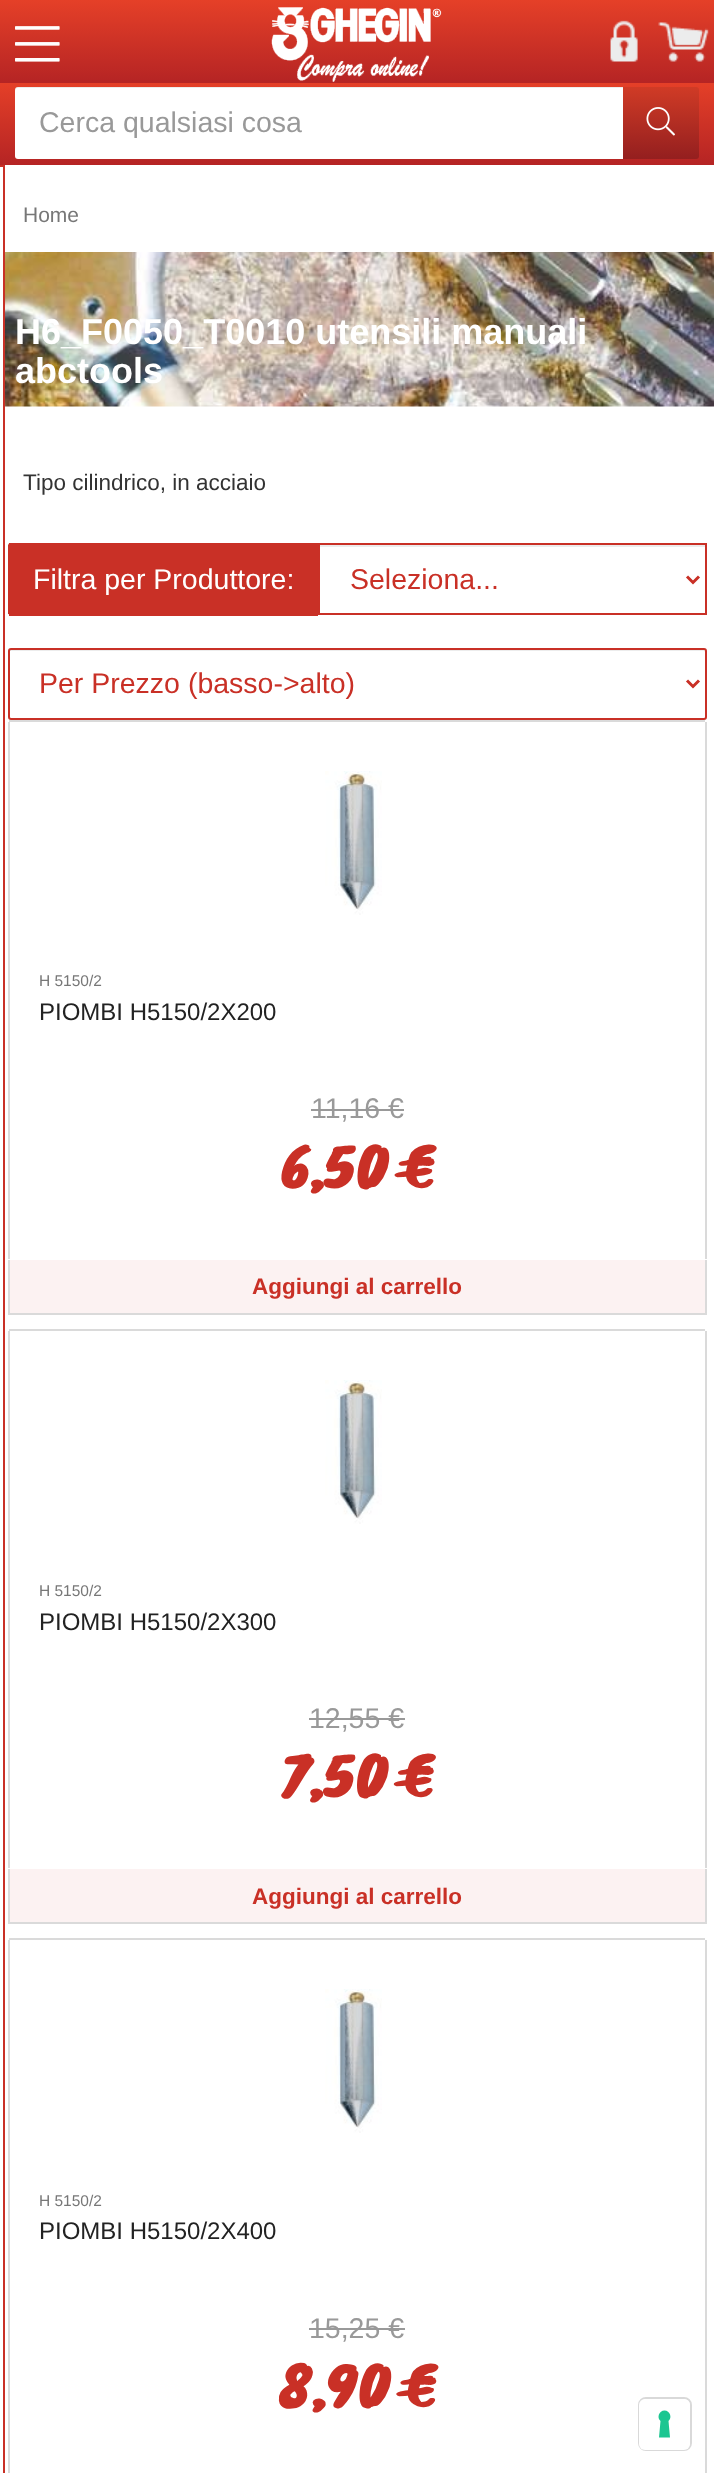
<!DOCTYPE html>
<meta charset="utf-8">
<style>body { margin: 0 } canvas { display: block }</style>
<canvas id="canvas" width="714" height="2473"></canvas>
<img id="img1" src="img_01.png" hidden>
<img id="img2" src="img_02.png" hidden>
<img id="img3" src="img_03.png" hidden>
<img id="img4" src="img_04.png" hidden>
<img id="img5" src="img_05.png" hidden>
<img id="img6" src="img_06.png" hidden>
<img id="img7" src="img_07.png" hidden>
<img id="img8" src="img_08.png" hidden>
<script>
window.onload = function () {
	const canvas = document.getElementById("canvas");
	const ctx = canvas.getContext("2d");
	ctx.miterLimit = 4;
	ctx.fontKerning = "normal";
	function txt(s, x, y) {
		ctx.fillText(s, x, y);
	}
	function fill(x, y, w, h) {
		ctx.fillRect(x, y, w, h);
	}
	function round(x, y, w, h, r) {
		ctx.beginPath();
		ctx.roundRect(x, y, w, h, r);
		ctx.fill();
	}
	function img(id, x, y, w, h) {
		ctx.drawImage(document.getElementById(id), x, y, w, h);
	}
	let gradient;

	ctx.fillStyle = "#FFFFFF";
	fill(0, 0, 714, 2473);
	gradient = ctx.createLinearGradient(357, 0, 357, 83);
	gradient.addColorStop(0, "#E54028");
	gradient.addColorStop(1, "#B52424");
	ctx.fillStyle = gradient;
	fill(0, 0, 714, 83);
	img("img1", 15, 26, 45, 36);
	img("img2", 271, 7, 171, 75);
	img("img3", 610, 20, 28, 42);
	img("img4", 658, 22, 51, 40);
	gradient = ctx.createLinearGradient(357, 82, 357, 165);
	gradient.addColorStop(0, "#E54028");
	gradient.addColorStop(1, "#B52424");
	ctx.fillStyle = gradient;
	fill(0, 83, 714, 82);
	ctx.fillStyle = "#FFFFFF";
	ctx.beginPath();
	ctx.roundRect(15, 87, 609, 72, [3, 0, 0, 3]);
	ctx.fill();
	ctx.fillStyle = "rgba(0, 0, 0, 0.07)";
	ctx.beginPath();
	ctx.moveTo(18, 88);
	ctx.lineTo(624, 88);
	ctx.lineTo(624, 87);
	ctx.lineTo(18, 87);
	ctx.bezierCurveTo(16, 87, 15, 88, 15, 90);
	ctx.lineTo(15, 92);
	ctx.bezierCurveTo(15, 90, 16, 88, 18, 88);
	ctx.closePath();
	ctx.fill();
	gradient = ctx.createLinearGradient(661, 87, 661, 159);
	gradient.addColorStop(0, "#D03B26");
	gradient.addColorStop(1, "#941F1F");
	ctx.fillStyle = gradient;
	ctx.beginPath();
	ctx.roundRect(623, 87, 76, 72, [0, 3, 3, 0]);
	ctx.fill();
	img("img5", 646, 107, 29, 29);
	ctx.strokeStyle = "#C93026";
	ctx.lineWidth = 2;
	ctx.strokeRect(-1, 166, 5, 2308);
	img("img6", 5, 252, 709, 155);
	ctx.fillStyle = "#C93026";
	ctx.beginPath();
	ctx.roundRect(8, 543, 310, 72, [3, 0, 0, 3]);
	ctx.fill();
	fill(9, 543, 2, 1);
	fill(9, 614, 309, 2);
	fill(8, 545, 1, 69);
	ctx.fillStyle = "#ECECEC";
	fill(320, 545, 385, 2);
	ctx.strokeRect(319, 544, 387, 70);
	ctx.beginPath();
	ctx.moveTo(687, 576.5);
	ctx.lineTo(693, 582.5);
	ctx.lineTo(699, 576.5);
	ctx.lineWidth = 3;
	ctx.stroke();
	ctx.beginPath();
	ctx.moveTo(10, 651);
	ctx.lineTo(704, 651);
	ctx.lineTo(705, 652);
	ctx.lineTo(705, 651);
	ctx.lineTo(704, 650);
	ctx.lineTo(10, 650);
	ctx.lineTo(9, 652);
	ctx.closePath();
	ctx.fill();
	ctx.beginPath();
	ctx.roundRect(9, 649, 697, 70, 2);
	ctx.lineWidth = 2;
	ctx.stroke();
	ctx.beginPath();
	ctx.moveTo(687, 680.5);
	ctx.lineTo(693, 686.5);
	ctx.lineTo(699, 680.5);
	ctx.lineWidth = 3;
	ctx.stroke();
	ctx.fillStyle = "#DADADA";
	fill(9, 720, 696, 2);
	fill(705, 722, 2, 537);
	fill(8, 722, 2, 537);
	img("img7", 325, 771, 57, 144);
	ctx.fillStyle = "#999999";
	fill(311, 1109, 93, 2);
	ctx.fillStyle = "#FCF2F2";
	fill(10, 1260, 695, 53);
	ctx.fillStyle = "#DADADA";
	fill(705, 1260, 2, 54);
	fill(8, 1313, 699, 2);
	fill(8, 1260, 2, 54);
	fill(9, 1329, 696, 2);
	fill(705, 1331, 2, 537);
	fill(8, 1331, 2, 537);
	img("img8", 325, 1380, 57, 144);
	ctx.fillStyle = "#999999";
	fill(309, 1718, 96, 2);
	ctx.fillStyle = "#FCF2F2";
	fill(10, 1869, 695, 53);
	ctx.fillStyle = "#DADADA";
	fill(705, 1869, 2, 54);
	fill(8, 1922, 699, 2);
	fill(8, 1869, 2, 54);
	fill(9, 1938, 696, 2);
	fill(705, 1940, 2, 533);
	fill(8, 1940, 2, 533);
	img("img7", 325, 1989, 57, 144);
	ctx.fillStyle = "#999999";
	fill(309, 2328, 96, 2);
	ctx.beginPath();
	ctx.roundRect(639, 2398, 52, 52, 7);
	ctx.strokeStyle = "#D9D9D9";
	ctx.lineWidth = 2;
	ctx.stroke();
	ctx.fillStyle = "#FFFFFF";
	round(639, 2399, 51, 51, 6);
	ctx.fillStyle = "#1CC691";
	ctx.beginPath();
	ctx.moveTo(664.5, 2410.5);
	ctx.bezierCurveTo(670, 2410.5, 672.5, 2417.5, 668.5, 2421);
	ctx.lineTo(670, 2437.5);
	ctx.lineTo(659, 2437.5);
	ctx.lineTo(660.5, 2421);
	ctx.bezierCurveTo(656.5, 2417.5, 659, 2410.5, 664.5, 2410.5);
	ctx.closePath();
	ctx.fill("evenodd");
	ctx.font = "28.5px Liberation Sans";
	ctx.fillStyle = "#999999";
	txt("Cerca qualsiasi cosa", 39, 132);
	ctx.font = "21px Liberation Sans";
	ctx.fillStyle = "#777777";
	txt("Home", 23, 222);
	ctx.font = "bold 36px Liberation Sans";
	ctx.fillStyle = "#FFFFFF";
	txt("H6_F0050_T0010 utensili manuali", 15, 344);
	txt("abctools", 15, 383);
	ctx.font = "22.5px Liberation Sans";
	ctx.fillStyle = "#333333";
	txt("Tipo cilindrico, in acciaio", 23, 490);
	ctx.font = "28.5px Liberation Sans";
	ctx.fillStyle = "#FFFFFF";
	txt("Filtra per Produttore:", 33, 589);
	ctx.fillStyle = "#C93026";
	txt("Seleziona...", 350, 589);
	txt("Per Prezzo (basso->alto)", 39, 693);
	ctx.font = "15.5px Liberation Sans";
	ctx.fillStyle = "#777777";
	txt("H 5150/2", 39, 986);
	ctx.font = "24px Liberation Sans";
	ctx.fillStyle = "#222222";
	txt("PIOMBI H5150/2X200", 39, 1020);
	ctx.font = "28.5px Liberation Sans";
	ctx.fillStyle = "#999999";
	txt("11,16 €", 311, 1118);
	ctx.font = "51px Knewave";
	ctx.fillStyle = "#C93026";
	txt("6,50 €", 280, 1185);
	ctx.font = "bold 22.5px Liberation Sans";
	txt("Aggiungi al carrello", 252, 1294);
	ctx.font = "15.5px Liberation Sans";
	ctx.fillStyle = "#777777";
	txt("H 5150/2", 39, 1596);
	ctx.font = "24px Liberation Sans";
	ctx.fillStyle = "#222222";
	txt("PIOMBI H5150/2X300", 39, 1630);
	ctx.font = "28.5px Liberation Sans";
	ctx.fillStyle = "#999999";
	txt("12,55 €", 309, 1728);
	ctx.font = "51px Knewave";
	ctx.fillStyle = "#C93026";
	txt("7,50 €", 281, 1794);
	ctx.font = "bold 22.5px Liberation Sans";
	txt("Aggiungi al carrello", 252, 1904);
	ctx.font = "15.5px Liberation Sans";
	ctx.fillStyle = "#777777";
	txt("H 5150/2", 39, 2206);
	ctx.font = "24px Liberation Sans";
	ctx.fillStyle = "#222222";
	txt("PIOMBI H5150/2X400", 39, 2239);
	ctx.font = "28.5px Liberation Sans";
	ctx.fillStyle = "#999999";
	txt("15,25 €", 309, 2338);
	ctx.font = "51px Knewave";
	ctx.fillStyle = "#C93026";
	txt("8,90 €", 278, 2404);
};
</script>
